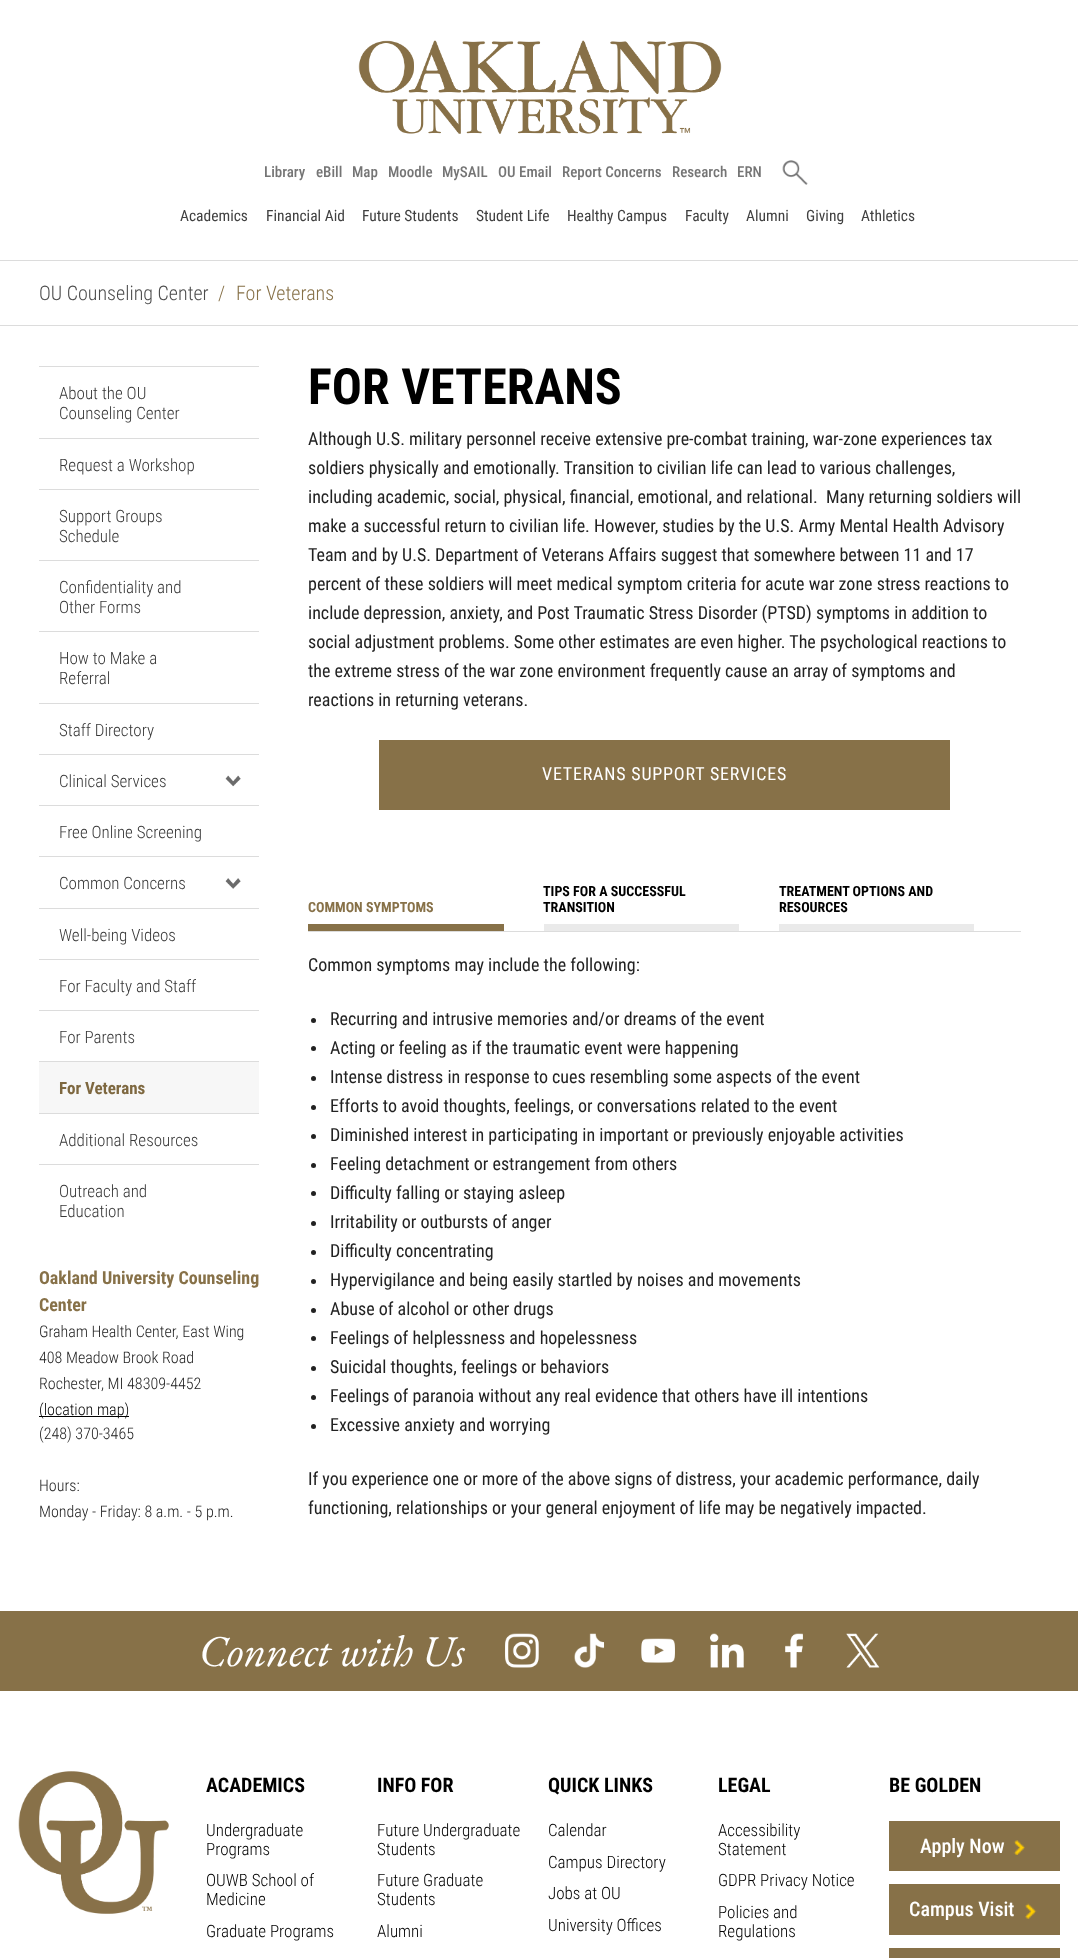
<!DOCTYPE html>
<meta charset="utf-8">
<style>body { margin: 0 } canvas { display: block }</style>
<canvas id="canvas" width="1078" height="1958"></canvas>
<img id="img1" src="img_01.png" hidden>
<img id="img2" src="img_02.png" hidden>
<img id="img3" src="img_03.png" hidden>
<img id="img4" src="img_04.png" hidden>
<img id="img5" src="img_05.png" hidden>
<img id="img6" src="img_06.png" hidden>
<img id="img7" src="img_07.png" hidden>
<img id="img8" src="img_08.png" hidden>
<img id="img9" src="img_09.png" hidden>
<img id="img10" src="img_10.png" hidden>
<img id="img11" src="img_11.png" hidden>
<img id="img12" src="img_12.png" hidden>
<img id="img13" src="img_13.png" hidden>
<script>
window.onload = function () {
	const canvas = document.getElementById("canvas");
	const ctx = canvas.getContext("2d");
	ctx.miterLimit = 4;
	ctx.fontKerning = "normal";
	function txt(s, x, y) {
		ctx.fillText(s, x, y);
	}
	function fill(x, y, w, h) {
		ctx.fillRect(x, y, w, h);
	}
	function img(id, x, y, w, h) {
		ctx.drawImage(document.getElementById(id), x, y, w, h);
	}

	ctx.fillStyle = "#FFFFFF";
	fill(0, 0, 1078, 1958);
	img("img1", 358, 40, 364, 94);
	img("img2", 782, 160, 26, 25);
	ctx.fillStyle = "#DCDCDC";
	fill(0, 260, 1078, 1);
	fill(0, 325, 1078, 1);
	fill(39, 366, 220, 1);
	fill(39, 438, 220, 1);
	fill(39, 489, 220, 1);
	fill(39, 560, 220, 1);
	fill(39, 631, 220, 1);
	fill(39, 703, 220, 1);
	fill(39, 754, 220, 1);
	img("img3", 225, 775, 16, 12);
	fill(39, 805, 220, 1);
	fill(39, 856, 220, 1);
	img("img4", 225, 878, 16, 11);
	fill(39, 908, 220, 1);
	fill(39, 959, 220, 1);
	fill(39, 1010, 220, 1);
	ctx.fillStyle = "#F7F7F7";
	fill(39, 1062, 220, 51);
	ctx.fillStyle = "#DCDCDC";
	fill(39, 1061, 220, 1);
	fill(39, 1113, 220, 1);
	fill(39, 1164, 220, 1);
	ctx.fillStyle = "#000000";
	fill(39, 1416, 90, 1);
	ctx.fillStyle = "#877148";
	fill(379, 740, 571, 70);
	ctx.fillStyle = "#DCDCDC";
	fill(308, 931, 713, 1);
	ctx.fillStyle = "#877148";
	fill(308, 924, 196, 7);
	ctx.fillStyle = "#EAEAEA";
	fill(544, 924, 195, 7);
	fill(779, 924, 195, 7);
	ctx.fillStyle = "#222222";
	ctx.beginPath();
	ctx.arc(313.5, 1020.5, 2.5, 0, Math.PI * 2);
	ctx.fill();
	ctx.beginPath();
	ctx.arc(313.5, 1048.5, 2.5, 0, Math.PI * 2);
	ctx.fill();
	ctx.beginPath();
	ctx.arc(313.5, 1078.5, 2.5, 0, Math.PI * 2);
	ctx.fill();
	ctx.beginPath();
	ctx.arc(313.5, 1107.5, 2.5, 0, Math.PI * 2);
	ctx.fill();
	ctx.beginPath();
	ctx.arc(313.5, 1136.5, 2.5, 0, Math.PI * 2);
	ctx.fill();
	ctx.beginPath();
	ctx.arc(313.5, 1165.5, 2.5, 0, Math.PI * 2);
	ctx.fill();
	ctx.beginPath();
	ctx.arc(313.5, 1193.5, 2.5, 0, Math.PI * 2);
	ctx.fill();
	ctx.beginPath();
	ctx.arc(313.5, 1223.5, 2.5, 0, Math.PI * 2);
	ctx.fill();
	ctx.beginPath();
	ctx.arc(313.5, 1252.5, 2.5, 0, Math.PI * 2);
	ctx.fill();
	ctx.beginPath();
	ctx.arc(313.5, 1281.5, 2.5, 0, Math.PI * 2);
	ctx.fill();
	ctx.beginPath();
	ctx.arc(313.5, 1310.5, 2.5, 0, Math.PI * 2);
	ctx.fill();
	ctx.beginPath();
	ctx.arc(313.5, 1338.5, 2.5, 0, Math.PI * 2);
	ctx.fill();
	ctx.beginPath();
	ctx.arc(313.5, 1368.5, 2.5, 0, Math.PI * 2);
	ctx.fill();
	ctx.beginPath();
	ctx.arc(313.5, 1397.5, 2.5, 0, Math.PI * 2);
	ctx.fill();
	ctx.beginPath();
	ctx.arc(313.5, 1426.5, 2.5, 0, Math.PI * 2);
	ctx.fill();
	ctx.fillStyle = "#877148";
	fill(0, 1611, 1078, 80);
	img("img5", 505, 1633, 34, 35);
	img("img6", 574, 1633, 31, 35);
	img("img7", 641, 1638, 34, 25);
	img("img8", 710, 1633, 34, 35);
	img("img9", 785, 1633, 18, 35);
	img("img10", 846, 1633, 34, 35);
	img("img11", 18, 1771, 151, 143);
	fill(889, 1821, 171, 50);
	img("img12", 1013, 1840, 12, 15);
	fill(889, 1884, 171, 51);
	img("img13", 1025, 1903, 12, 16);
	fill(889, 1948, 171, 10);
	ctx.font = "500 15px Roboto Condensed";
	ctx.fillStyle = "#757575";
	txt("Library", 264, 177);
	txt("eBill", 316, 177);
	txt("Map", 352, 177);
	txt("Moodle", 388, 177);
	txt("MySAIL", 442, 177);
	txt("OU Email", 498, 177);
	txt("Report Concerns", 562, 177);
	txt("Research", 672, 177);
	txt("ERN", 737, 177);
	ctx.font = "15.5px Roboto Condensed";
	ctx.fillStyle = "#404040";
	txt("Academics", 180, 221);
	txt("Financial Aid", 266, 221);
	txt("Future Students", 362, 221);
	txt("Student Life", 476, 221);
	txt("Healthy Campus", 567, 221);
	txt("Faculty", 685, 221);
	txt("Alumni", 746, 221);
	txt("Giving", 806, 221);
	txt("Athletics", 861, 221);
	ctx.font = "300 20px Roboto Condensed";
	ctx.fillStyle = "#4C4C4C";
	txt("OU Counseling Center", 39, 300);
	ctx.fillStyle = "#877148";
	txt("/", 218, 300);
	txt("For Veterans", 236, 300);
	ctx.font = "300 17px Roboto Condensed";
	ctx.fillStyle = "#383838";
	txt("About the OU", 59, 399);
	txt("Counseling Center", 59, 419);
	txt("Request a Workshop", 59, 471);
	txt("Support Groups", 59, 522);
	txt("Schedule", 59, 542);
	txt("Confidentiality and", 59, 593);
	txt("Other Forms", 59, 613);
	txt("How to Make a", 59, 664);
	txt("Referral", 59, 684);
	txt("Staff Directory", 59, 736);
	txt("Clinical Services", 59, 787);
	txt("Free Online Screening", 59, 838);
	txt("Common Concerns", 59, 889);
	txt("Well-being Videos", 59, 941);
	txt("For Faculty and Staff", 59, 992);
	txt("For Parents", 59, 1043);
	ctx.font = "bold 17px Roboto Condensed";
	ctx.fillStyle = "#7E6840";
	txt("For Veterans", 59, 1094);
	ctx.font = "300 17px Roboto Condensed";
	ctx.fillStyle = "#383838";
	txt("Additional Resources", 59, 1146);
	txt("Outreach and", 59, 1197);
	txt("Education", 59, 1217);
	ctx.font = "bold 18px Roboto Condensed";
	ctx.fillStyle = "#877148";
	txt("Oakland University Counseling", 39, 1284);
	txt("Center", 39, 1311);
	ctx.font = "300 16px Roboto Condensed";
	ctx.fillStyle = "#222222";
	txt("Graham Health Center, East Wing", 39, 1337);
	txt("408 Meadow Brook Road", 39, 1363);
	txt("Rochester, MI 48309-4452", 39, 1389);
	ctx.fillStyle = "#000000";
	txt("(location map)", 39, 1415);
	ctx.fillStyle = "#222222";
	txt("(248) 370-3465", 39, 1439);
	txt("Hours:", 39, 1491);
	txt("Monday - Friday: 8 a.m. - 5 p.m.", 39, 1517);
	ctx.font = "bold 50px Roboto Condensed";
	ctx.fillStyle = "#000000";
	txt("FOR VETERANS", 308, 404);
	ctx.font = "18px Roboto Condensed";
	ctx.fillStyle = "#222222";
	txt("Although U.S. military personnel receive extensive pre-combat training, war-zone experiences tax", 308, 445);
	txt("soldiers physically and emotionally. Transition to civilian life can lead to various challenges,", 308, 474);
	txt("including academic, social, physical, financial, emotional, and relational.  Many returning soldiers will", 308, 503);
	txt("make a successful return to civilian life. However, studies by the U.S. Army Mental Health Advisory", 308, 532);
	txt("Team and by U.S. Department of Veterans Affairs suggest that somewhere between 11 and 17", 308, 561);
	txt("percent of these soldiers will meet medical symptom criteria for acute war zone stress reactions to", 308, 590);
	txt("include depression, anxiety, and Post Traumatic Stress Disorder (PTSD) symptoms in addition to", 308, 619);
	txt("social adjustment problems. Some other estimates are even higher. The psychological reactions to", 308, 648);
	txt("the extreme stress of the war zone environment frequently cause an array of symptoms and", 308, 677);
	txt("reactions in returning veterans.", 308, 706);
	ctx.letterSpacing = "0.8px";
	ctx.fillStyle = "#FFFFFF";
	txt("VETERANS SUPPORT SERVICES", 542, 780);
	ctx.letterSpacing = "0px";
	ctx.font = "bold 14px Roboto Condensed";
	ctx.fillStyle = "#877148";
	txt("COMMON SYMPTOMS", 308, 912);
	ctx.fillStyle = "#000000";
	txt("TIPS FOR A SUCCESSFUL", 543, 896);
	txt("TRANSITION", 543, 912);
	txt("TREATMENT OPTIONS AND", 779, 896);
	txt("RESOURCES", 779, 912);
	ctx.font = "18px Roboto Condensed";
	ctx.fillStyle = "#222222";
	txt("Common symptoms may include the following:", 308, 971);
	txt("Recurring and intrusive memories and/or dreams of the event", 330, 1025);
	txt("Acting or feeling as if the traumatic event were happening", 330, 1054);
	txt("Intense distress in response to cues resembling some aspects of the event", 330, 1083);
	txt("Efforts to avoid thoughts, feelings, or conversations related to the event", 330, 1112);
	txt("Diminished interest in participating in important or previously enjoyable activities", 330, 1141);
	txt("Feeling detachment or estrangement from others", 330, 1170);
	txt("Difficulty falling or staying asleep", 330, 1199);
	txt("Irritability or outbursts of anger", 330, 1228);
	txt("Difficulty concentrating", 330, 1257);
	txt("Hypervigilance and being easily startled by noises and movements", 330, 1286);
	txt("Abuse of alcohol or other drugs", 330, 1315);
	txt("Feelings of helplessness and hopelessness", 330, 1344);
	txt("Suicidal thoughts, feelings or behaviors", 330, 1373);
	txt("Feelings of paranoia without any real evidence that others have ill intentions", 330, 1402);
	txt("Excessive anxiety and worrying", 330, 1431);
	txt("If you experience one or more of the above signs of distress, your academic performance, daily", 308, 1485);
	txt("functioning, relationships or your general enjoyment of life may be negatively impacted.", 308, 1514);
	ctx.font = "italic 44px EB Garamond";
	ctx.fillStyle = "#FFFFFF";
	txt("Connect with Us", 199, 1666);
	ctx.font = "bold 20px Roboto Condensed";
	ctx.fillStyle = "#000000";
	txt("ACADEMICS", 206, 1792);
	ctx.font = "300 17px Roboto Condensed";
	txt("Undergraduate", 206, 1836);
	txt("Programs", 206, 1855);
	txt("OUWB School of", 206, 1886);
	txt("Medicine", 206, 1905);
	txt("Graduate Programs", 206, 1937);
	ctx.font = "bold 20px Roboto Condensed";
	txt("INFO FOR", 377, 1792);
	ctx.font = "300 17px Roboto Condensed";
	txt("Future Undergraduate", 377, 1836);
	txt("Students", 377, 1855);
	txt("Future Graduate", 377, 1886);
	txt("Students", 377, 1905);
	txt("Alumni", 377, 1937);
	ctx.font = "bold 20px Roboto Condensed";
	txt("QUICK LINKS", 548, 1792);
	ctx.font = "300 17px Roboto Condensed";
	txt("Calendar", 548, 1836);
	txt("Campus Directory", 548, 1868);
	txt("Jobs at OU", 548, 1899);
	txt("University Offices", 548, 1931);
	ctx.font = "bold 20px Roboto Condensed";
	txt("LEGAL", 718, 1792);
	ctx.font = "300 17px Roboto Condensed";
	txt("Accessibility", 718, 1836);
	txt("Statement", 718, 1855);
	txt("GDPR Privacy Notice", 718, 1886);
	txt("Policies and", 718, 1918);
	txt("Regulations", 718, 1937);
	ctx.font = "bold 20px Roboto Condensed";
	txt("BE GOLDEN", 889, 1792);
	ctx.font = "500 20px Roboto Condensed";
	ctx.fillStyle = "#FFFFFF";
	txt("Apply Now", 920, 1853);
	txt("Campus Visit", 909, 1916);
};
</script>
